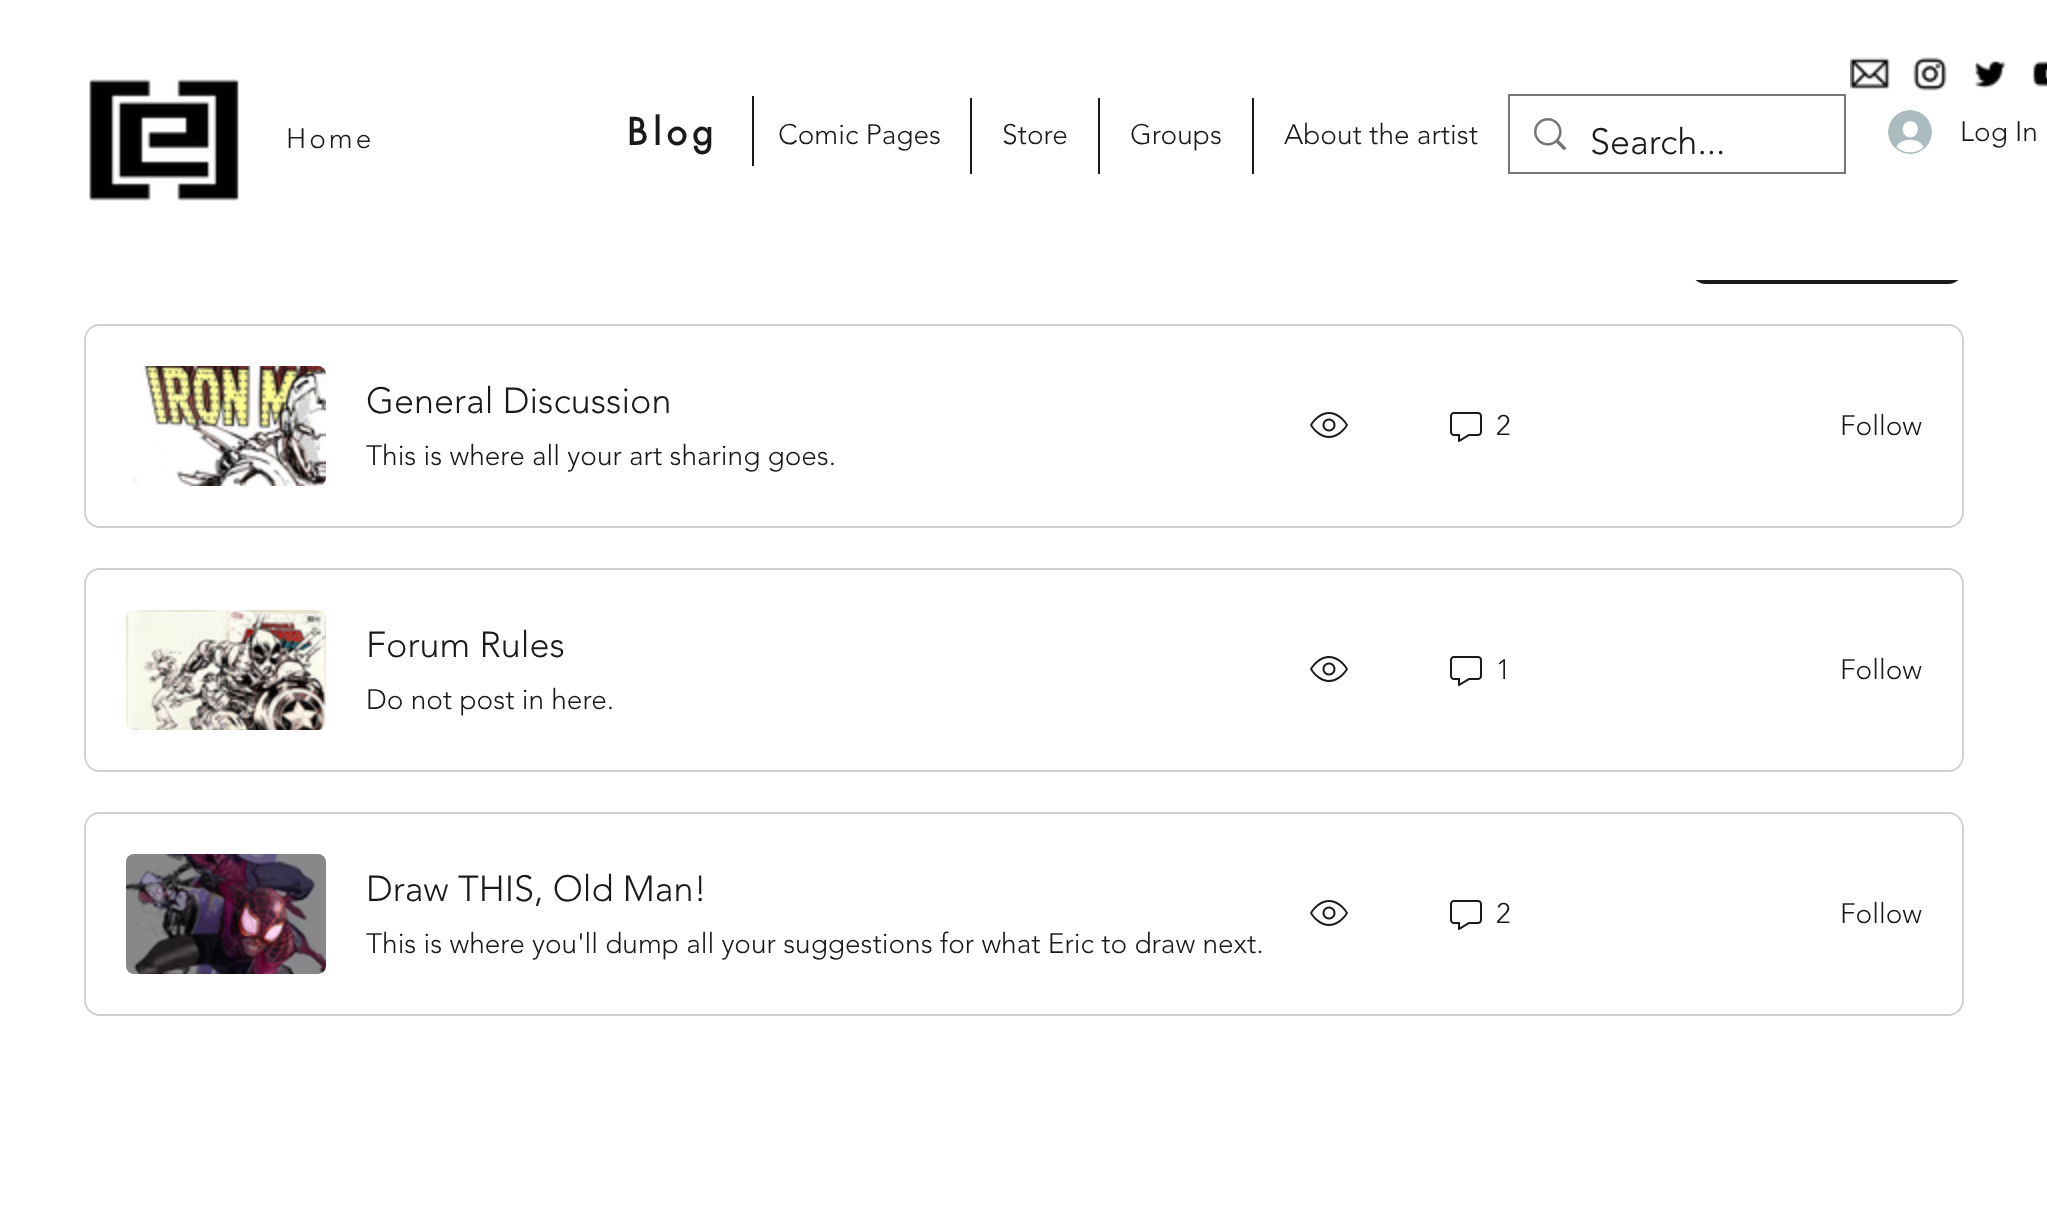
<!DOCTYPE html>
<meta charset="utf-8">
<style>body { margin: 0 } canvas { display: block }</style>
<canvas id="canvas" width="2047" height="1220"></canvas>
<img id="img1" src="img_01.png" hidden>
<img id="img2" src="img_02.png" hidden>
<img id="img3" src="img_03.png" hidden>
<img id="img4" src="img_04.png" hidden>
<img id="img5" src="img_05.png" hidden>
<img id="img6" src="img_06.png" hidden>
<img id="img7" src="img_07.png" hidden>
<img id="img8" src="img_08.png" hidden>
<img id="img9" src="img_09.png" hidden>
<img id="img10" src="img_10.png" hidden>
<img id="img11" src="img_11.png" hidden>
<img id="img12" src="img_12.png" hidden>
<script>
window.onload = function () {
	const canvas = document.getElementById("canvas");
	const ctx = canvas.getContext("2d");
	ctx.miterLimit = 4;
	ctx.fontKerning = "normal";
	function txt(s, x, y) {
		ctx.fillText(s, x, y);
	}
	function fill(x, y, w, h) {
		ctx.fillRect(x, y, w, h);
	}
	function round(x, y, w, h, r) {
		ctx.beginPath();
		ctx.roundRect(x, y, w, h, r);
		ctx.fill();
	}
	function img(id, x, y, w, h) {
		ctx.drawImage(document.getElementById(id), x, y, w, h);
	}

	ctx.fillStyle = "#FFFFFF";
	fill(0, 0, 2047, 1220);
	img("img1", 89, 79, 150, 122);
	img("img2", 1850, 57, 40, 32);
	img("img3", 1913, 57, 34, 34);
	img("img4", 1974, 60, 33, 29);
	img("img5", 2032, 61, 15, 26);
	ctx.fillStyle = "#1A1A1A";
	fill(752, 96, 2, 70);
	fill(970, 98, 2, 76);
	fill(1098, 98, 2, 76);
	fill(1252, 98, 2, 76);
	ctx.strokeStyle = "#767676";
	ctx.lineWidth = 2;
	ctx.strokeRect(1509, 95, 336, 78);
	img("img6", 1534, 118, 32, 32);
	img("img7", 1888, 110, 44, 44);
	round(1690, 212, 274, 72, 16);
	ctx.fillStyle = "#FFFFFF";
	fill(1690, 212, 274, 68);
	ctx.fillStyle = "#D1D1D1";
	ctx.beginPath();
	ctx.moveTo(100, 324);
	ctx.lineTo(326, 324);
	ctx.lineTo(326, 528);
	ctx.lineTo(100, 528);
	ctx.bezierCurveTo(91, 528, 84, 521, 84, 512);
	ctx.lineTo(84, 340);
	ctx.bezierCurveTo(84, 331, 91, 324, 100, 324);
	ctx.closePath();
	ctx.moveTo(100, 326);
	ctx.lineTo(326, 326);
	ctx.lineTo(326, 526);
	ctx.lineTo(100, 526);
	ctx.bezierCurveTo(92, 526, 86, 520, 86, 512);
	ctx.lineTo(86, 340);
	ctx.bezierCurveTo(86, 332, 92, 326, 100, 326);
	ctx.closePath();
	ctx.fill("evenodd");
	img("img8", 132, 366, 194, 120);
	fill(326, 324, 1490, 2);
	fill(326, 526, 1490, 2);
	img("img9", 1310, 412, 38, 26);
	img("img10", 1450, 412, 32, 30);
	ctx.beginPath();
	ctx.moveTo(1816, 324);
	ctx.lineTo(1948, 324);
	ctx.bezierCurveTo(1957, 324, 1964, 331, 1964, 340);
	ctx.lineTo(1964, 512);
	ctx.bezierCurveTo(1964, 521, 1957, 528, 1948, 528);
	ctx.lineTo(1816, 528);
	ctx.closePath();
	ctx.moveTo(1816, 326);
	ctx.lineTo(1948, 326);
	ctx.bezierCurveTo(1956, 326, 1962, 332, 1962, 340);
	ctx.lineTo(1962, 512);
	ctx.bezierCurveTo(1962, 520, 1956, 526, 1948, 526);
	ctx.lineTo(1816, 526);
	ctx.closePath();
	ctx.fill("evenodd");
	ctx.beginPath();
	ctx.moveTo(100, 568);
	ctx.lineTo(326, 568);
	ctx.lineTo(326, 772);
	ctx.lineTo(100, 772);
	ctx.bezierCurveTo(91, 772, 84, 765, 84, 756);
	ctx.lineTo(84, 584);
	ctx.bezierCurveTo(84, 575, 91, 568, 100, 568);
	ctx.closePath();
	ctx.moveTo(100, 570);
	ctx.lineTo(326, 570);
	ctx.lineTo(326, 770);
	ctx.lineTo(100, 770);
	ctx.bezierCurveTo(92, 770, 86, 764, 86, 756);
	ctx.lineTo(86, 584);
	ctx.bezierCurveTo(86, 576, 92, 570, 100, 570);
	ctx.closePath();
	ctx.fill("evenodd");
	img("img11", 126, 610, 200, 120);
	fill(326, 568, 1490, 2);
	fill(326, 770, 1490, 2);
	img("img9", 1310, 656, 38, 26);
	img("img10", 1450, 656, 32, 30);
	ctx.beginPath();
	ctx.moveTo(1816, 568);
	ctx.lineTo(1948, 568);
	ctx.bezierCurveTo(1957, 568, 1964, 575, 1964, 584);
	ctx.lineTo(1964, 756);
	ctx.bezierCurveTo(1964, 765, 1957, 772, 1948, 772);
	ctx.lineTo(1816, 772);
	ctx.closePath();
	ctx.moveTo(1816, 570);
	ctx.lineTo(1948, 570);
	ctx.bezierCurveTo(1956, 570, 1962, 576, 1962, 584);
	ctx.lineTo(1962, 756);
	ctx.bezierCurveTo(1962, 764, 1956, 770, 1948, 770);
	ctx.lineTo(1816, 770);
	ctx.closePath();
	ctx.fill("evenodd");
	ctx.beginPath();
	ctx.moveTo(100, 812);
	ctx.lineTo(326, 812);
	ctx.lineTo(326, 1016);
	ctx.lineTo(100, 1016);
	ctx.bezierCurveTo(91, 1016, 84, 1009, 84, 1000);
	ctx.lineTo(84, 828);
	ctx.bezierCurveTo(84, 819, 91, 812, 100, 812);
	ctx.closePath();
	ctx.moveTo(100, 814);
	ctx.lineTo(326, 814);
	ctx.lineTo(326, 1014);
	ctx.lineTo(100, 1014);
	ctx.bezierCurveTo(92, 1014, 86, 1008, 86, 1000);
	ctx.lineTo(86, 828);
	ctx.bezierCurveTo(86, 820, 92, 814, 100, 814);
	ctx.closePath();
	ctx.fill("evenodd");
	img("img12", 126, 854, 200, 120);
	fill(326, 812, 1490, 2);
	fill(326, 1014, 1490, 2);
	img("img9", 1310, 900, 38, 26);
	img("img10", 1450, 900, 32, 30);
	ctx.beginPath();
	ctx.moveTo(1816, 812);
	ctx.lineTo(1948, 812);
	ctx.bezierCurveTo(1957, 812, 1964, 819, 1964, 828);
	ctx.lineTo(1964, 1000);
	ctx.bezierCurveTo(1964, 1009, 1957, 1016, 1948, 1016);
	ctx.lineTo(1816, 1016);
	ctx.closePath();
	ctx.moveTo(1816, 814);
	ctx.lineTo(1948, 814);
	ctx.bezierCurveTo(1956, 814, 1962, 820, 1962, 828);
	ctx.lineTo(1962, 1000);
	ctx.bezierCurveTo(1962, 1008, 1956, 1014, 1948, 1014);
	ctx.lineTo(1816, 1014);
	ctx.closePath();
	ctx.fill("evenodd");
	ctx.letterSpacing = "3px";
	ctx.font = "300 28px 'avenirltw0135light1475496'";
	ctx.fillStyle = "#1A1A1A";
	txt("Home", 286, 148);
	ctx.letterSpacing = "5.5px";
	ctx.font = "bold 36px futura";
	txt("Blog", 627, 145);
	ctx.letterSpacing = "0px";
	ctx.font = "300 28px 'avenirltw0135light1475496'";
	txt("Comic Pages", 778, 144);
	txt("Store", 1002, 144);
	txt("Groups", 1130, 144);
	txt("About the artist", 1284, 144);
	ctx.font = "300 36px 'avenirltw0135light1475496'";
	txt("Search...", 1590, 154);
	ctx.font = "300 28px 'avenirltw0135light1475496'";
	txt("Log In", 1960, 141);
	ctx.font = "300 36px 'avenirltw0135light1475496'";
	txt("General Discussion", 366, 413);
	ctx.font = "300 28px 'avenirltw0135light1475496'";
	txt("This is where all your art sharing goes.", 366, 465);
	txt("2", 1496, 435);
	txt("Follow", 1840, 435);
	ctx.font = "300 36px 'avenirltw0135light1475496'";
	txt("Forum Rules", 366, 657);
	ctx.font = "300 28px 'avenirltw0135light1475496'";
	txt("Do not post in here.", 366, 709);
	txt("1", 1496, 679);
	txt("Follow", 1840, 679);
	ctx.font = "300 36px 'avenirltw0135light1475496'";
	txt("Draw THIS, Old Man!", 366, 901);
	ctx.font = "300 28px 'avenirltw0135light1475496'";
	txt("This is where you'll dump all your suggestions for what Eric to draw next.", 366, 953);
	txt("2", 1496, 923);
	txt("Follow", 1840, 923);
};
</script>
